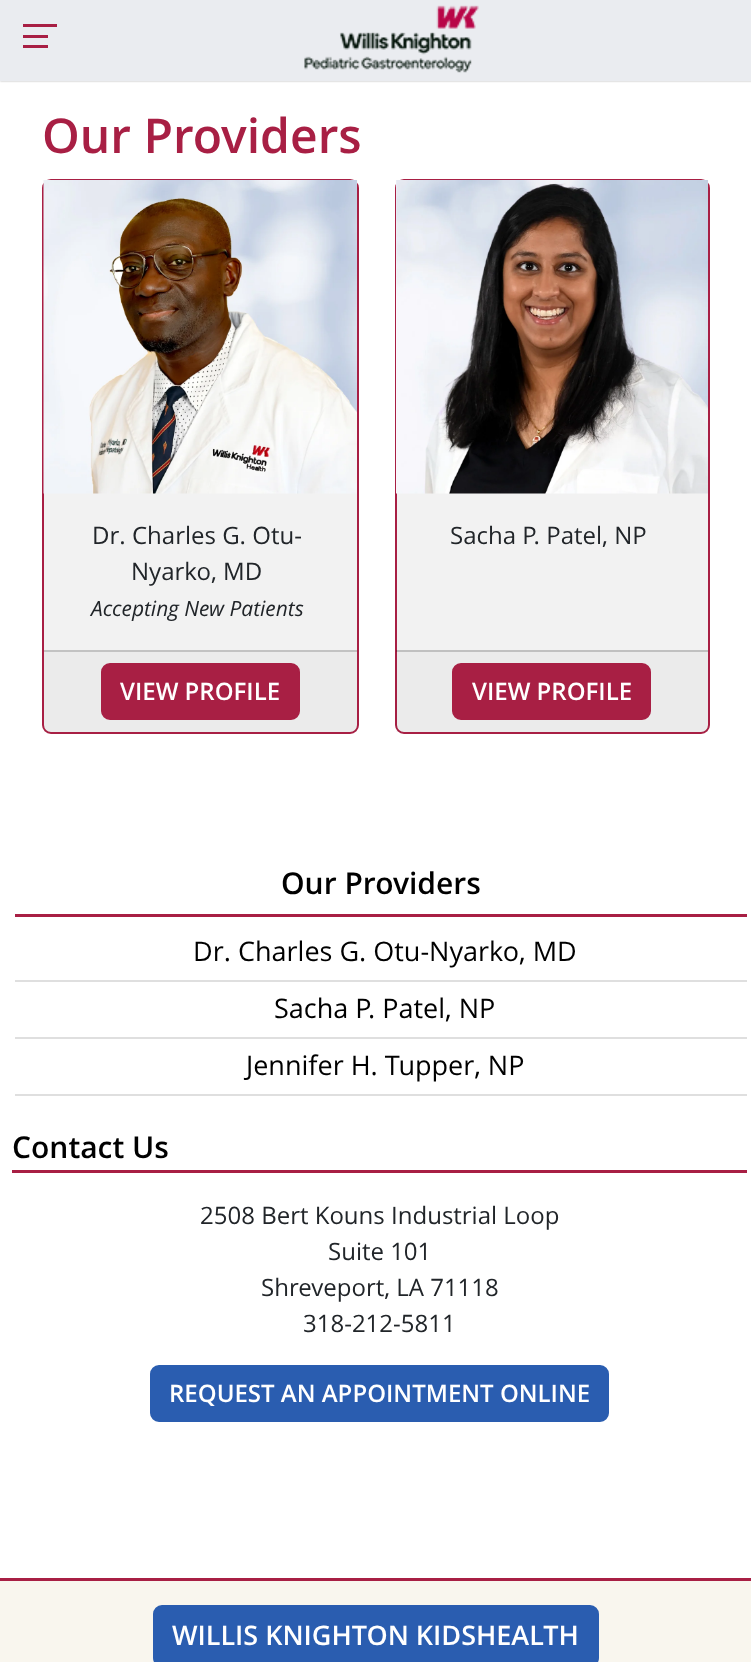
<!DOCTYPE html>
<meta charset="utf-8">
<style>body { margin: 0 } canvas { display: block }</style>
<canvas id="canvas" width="751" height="1662"></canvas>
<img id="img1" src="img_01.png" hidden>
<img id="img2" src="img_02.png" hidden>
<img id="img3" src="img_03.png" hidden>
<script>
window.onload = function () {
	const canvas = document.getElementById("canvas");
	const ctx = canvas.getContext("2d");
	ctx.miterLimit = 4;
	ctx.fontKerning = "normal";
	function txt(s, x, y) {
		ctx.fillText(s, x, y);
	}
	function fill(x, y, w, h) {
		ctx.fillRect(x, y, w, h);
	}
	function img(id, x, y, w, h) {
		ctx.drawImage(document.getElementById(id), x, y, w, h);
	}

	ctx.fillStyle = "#FFFFFF";
	fill(0, 0, 751, 1662);
	ctx.fillStyle = "rgba(0, 0, 0, 0.3)";
	ctx.filter = "blur(1px)";
	ctx.beginPath();
	ctx.rect(0, 0, 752, 81);
	ctx.fill();
	ctx.filter = "none";
	ctx.fillStyle = "#EAECF0";
	fill(0, 0, 751, 81);
	ctx.fillStyle = "#A81F44";
	fill(23, 35, 25, 3);
	fill(23, 24, 34, 3);
	fill(23, 45, 25, 3);
	img("img1", 304, 5, 175, 68);
	ctx.fillStyle = "#F2F2F2";
	ctx.beginPath();
	ctx.roundRect(43, 180, 315, 553, 8);
	ctx.fill();
	ctx.strokeStyle = "#A81F44";
	ctx.lineWidth = 2;
	ctx.stroke();
	img("img2", 43, 180, 314, 314);
	ctx.fillStyle = "rgba(33, 37, 41, 0.03)";
	fill(44, 652, 313, 80);
	ctx.fillStyle = "#C2C2C2";
	fill(44, 650, 313, 2);
	ctx.fillStyle = "#A81F44";
	ctx.beginPath();
	ctx.roundRect(102, 664, 197, 55, 8);
	ctx.fill();
	ctx.stroke();
	ctx.fillStyle = "#F2F2F2";
	ctx.beginPath();
	ctx.roundRect(396, 180, 313, 553, 8);
	ctx.fill();
	ctx.stroke();
	img("img3", 396, 180, 312, 314);
	ctx.fillStyle = "rgba(33, 37, 41, 0.03)";
	fill(396, 650, 312, 82);
	ctx.fillStyle = "rgba(0, 0, 0, 0.18)";
	fill(396, 650, 312, 2);
	ctx.fillStyle = "#A81F44";
	ctx.beginPath();
	ctx.roundRect(453, 664, 197, 55, 8);
	ctx.fill();
	ctx.stroke();
	fill(15, 914, 732, 3);
	ctx.fillStyle = "#DFDFDF";
	fill(15, 980, 732, 2);
	fill(15, 1037, 732, 2);
	fill(15, 1094, 732, 2);
	ctx.fillStyle = "#A81F44";
	fill(12, 1170, 735, 3);
	ctx.fillStyle = "#2A5DB0";
	ctx.beginPath();
	ctx.roundRect(151, 1366, 457, 55, 8);
	ctx.fill();
	ctx.strokeStyle = "#2A5DB0";
	ctx.stroke();
	ctx.fillStyle = "#F9F6EE";
	fill(0, 1581, 751, 81);
	ctx.fillStyle = "#A81F44";
	fill(0, 1578, 751, 3);
	ctx.fillStyle = "#2A5DB0";
	ctx.beginPath();
	ctx.roundRect(154, 1606, 444, 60, 8);
	ctx.fill();
	ctx.stroke();
	ctx.font = "600 48px Open Sans";
	ctx.fillStyle = "#A81F44";
	txt("Our Providers", 42, 153);
	ctx.font = "24px Open Sans";
	ctx.fillStyle = "#212529";
	txt("Dr. Charles G. Otu-", 92, 544);
	txt("Nyarko, MD", 131, 580);
	ctx.font = "italic 21px Open Sans";
	txt("Accepting New Patients", 91, 616);
	ctx.font = "600 24px Open Sans";
	ctx.fillStyle = "#FFFFFF";
	txt("VIEW PROFILE", 120, 700);
	ctx.font = "24px Open Sans";
	ctx.fillStyle = "#212529";
	txt("Sacha P. Patel, NP", 450, 544);
	ctx.font = "600 24px Open Sans";
	ctx.fillStyle = "#FFFFFF";
	txt("VIEW PROFILE", 472, 700);
	ctx.font = "600 30px Open Sans";
	ctx.fillStyle = "#000000";
	txt("Our Providers", 281, 894);
	ctx.font = "27px Open Sans";
	txt("Dr. Charles G. Otu-Nyarko, MD", 193, 961);
	txt("Sacha P. Patel, NP", 274, 1018);
	txt("Jennifer H. Tupper, NP", 246, 1075);
	ctx.font = "600 30px Open Sans";
	txt("Contact Us", 12, 1158);
	ctx.font = "24px Open Sans";
	ctx.fillStyle = "#212529";
	txt("2508 Bert Kouns Industrial Loop", 200, 1224);
	txt("Suite 101", 328, 1260);
	txt("Shreveport, LA 71118", 261, 1296);
	txt("318-212-5811", 303, 1332);
	ctx.font = "600 24px Open Sans";
	ctx.fillStyle = "#FFFFFF";
	txt("REQUEST AN APPOINTMENT ONLINE", 169, 1402);
	ctx.font = "600 27px Open Sans";
	txt("WILLIS KNIGHTON KIDSHEALTH", 172, 1645);
};
</script>
